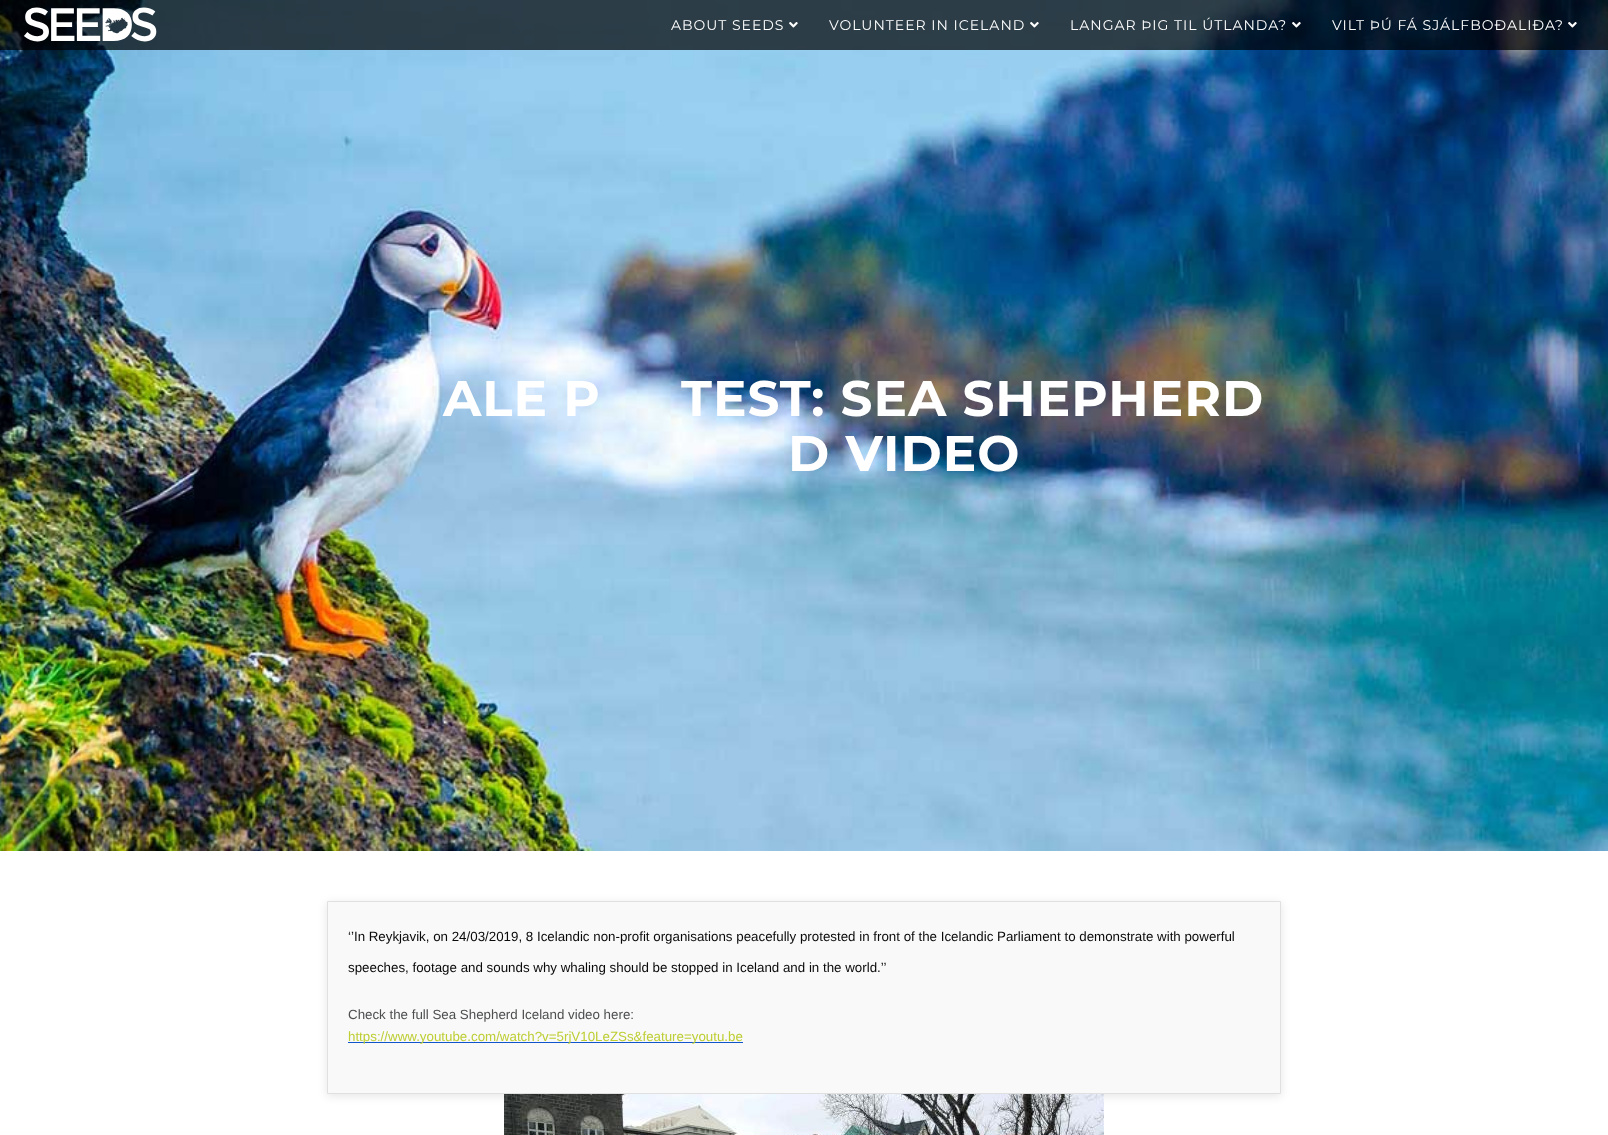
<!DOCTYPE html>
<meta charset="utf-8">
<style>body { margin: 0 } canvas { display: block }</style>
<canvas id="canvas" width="1608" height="1135"></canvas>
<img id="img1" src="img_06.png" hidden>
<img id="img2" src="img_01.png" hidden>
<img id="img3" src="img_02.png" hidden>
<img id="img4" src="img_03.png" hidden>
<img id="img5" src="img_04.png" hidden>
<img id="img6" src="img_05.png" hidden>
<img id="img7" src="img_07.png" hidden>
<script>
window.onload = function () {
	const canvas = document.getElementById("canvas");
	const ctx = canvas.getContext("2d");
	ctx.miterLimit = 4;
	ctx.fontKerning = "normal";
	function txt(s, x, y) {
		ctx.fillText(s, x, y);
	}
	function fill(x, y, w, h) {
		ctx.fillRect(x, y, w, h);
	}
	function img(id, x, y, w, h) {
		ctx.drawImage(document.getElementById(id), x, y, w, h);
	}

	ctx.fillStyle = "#FFFFFF";
	fill(0, 0, 1608, 1135);
	img("img1", 0, 0, 1608, 851);
	ctx.fillStyle = "rgba(0, 0, 0, 0.7)";
	fill(0, 0, 1608, 50);
	img("img2", 24, 7, 133, 35);
	img("img3", 789, 22, 9, 6);
	img("img4", 1030, 22, 9, 6);
	img("img5", 1292, 22, 9, 6);
	img("img6", 1568, 22, 9, 6);
	ctx.fillStyle = "rgba(0, 0, 0, 0.1)";
	ctx.filter = "blur(5px)";
	ctx.beginPath();
	ctx.rect(327, 903, 954, 193);
	ctx.fill();
	ctx.filter = "none";
	ctx.fillStyle = "#F9F9F9";
	ctx.beginPath();
	ctx.rect(327.5, 901.5, 953, 192);
	ctx.fill();
	ctx.strokeStyle = "#E0E0E0";
	ctx.stroke();
	ctx.fillStyle = "#1155CC";
	fill(348, 1042, 395, 1);
	img("img7", 504, 1094, 600, 41);
	ctx.letterSpacing = "1px";
	ctx.font = "14px Montserrat";
	ctx.fillStyle = "#FFFFFF";
	txt("ABOUT SEEDS", 671, 30);
	txt("VOLUNTEER IN ICELAND", 829, 30);
	txt("LANGAR ÞIG TIL ÚTLANDA?", 1070, 30);
	txt("VILT ÞÚ FÁ SJÁLFBOÐALIÐA?", 1332, 30);
	ctx.font = "bold 50px Montserrat";
	txt("ALE P", 443, 416);
	txt("TEST: SEA SHEPHERD", 681, 416);
	txt("D VIDEO", 788, 471);
	ctx.letterSpacing = "0px";
	ctx.font = "13.33px Liberation Sans";
	ctx.fillStyle = "#0A0A0A";
	txt("‘’In Reykjavik, on 24/03/2019, 8 Icelandic non-profit organisations peacefully protested in front of the Icelandic Parliament to demonstrate with powerful", 348, 941);
	txt("speeches, footage and sounds why whaling should be stopped in Iceland and in the world.’’", 348, 972);
	ctx.fillStyle = "#4D4E4F";
	txt("Check the full Sea Shepherd Iceland video here:", 348, 1019);
	ctx.fillStyle = "#BECE34";
	txt("https://www.youtube.com/watch?v=5rjV10LeZSs&feature=youtu.be", 348, 1041);
};
</script>
